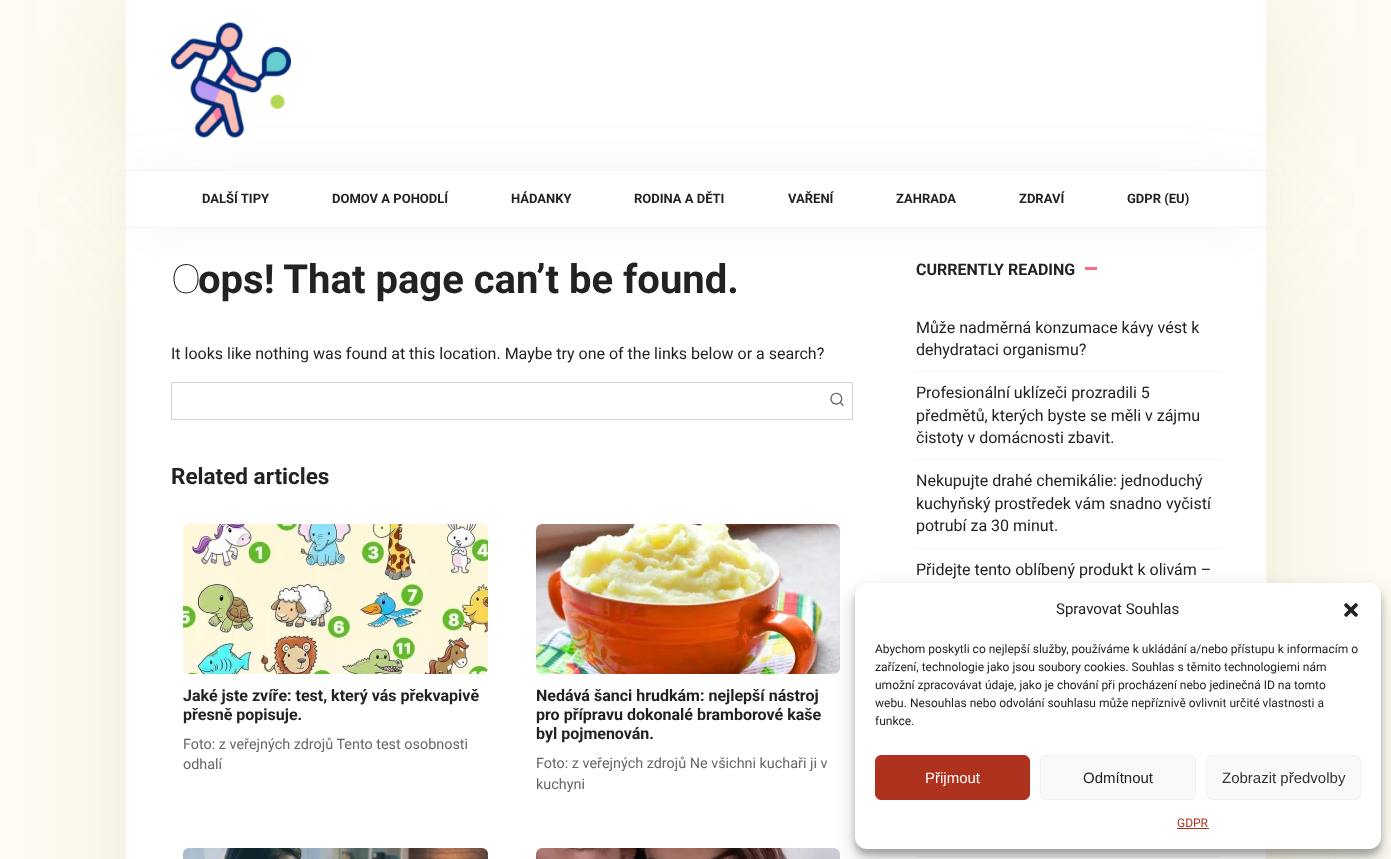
<!DOCTYPE html>
<meta charset="utf-8">
<style>body { margin: 0 } canvas { display: block }</style>
<canvas id="canvas" width="1391" height="859"></canvas>
<img id="img1" src="img_01.png" hidden>
<img id="img2" src="img_02.png" hidden>
<img id="img3" src="img_03.png" hidden>
<img id="img4" src="img_04.png" hidden>
<img id="img5" src="img_05.png" hidden>
<img id="img6" src="img_06.png" hidden>
<script>
window.onload = function () {
	const canvas = document.getElementById("canvas");
	const ctx = canvas.getContext("2d");
	ctx.miterLimit = 4;
	ctx.fontKerning = "normal";
	function txt(s, x, y) {
		ctx.fillText(s, x, y);
	}
	function fill(x, y, w, h) {
		ctx.fillRect(x, y, w, h);
	}
	function round(x, y, w, h, r) {
		ctx.beginPath();
		ctx.roundRect(x, y, w, h, r);
		ctx.fill();
	}
	function img(id, x, y, w, h) {
		ctx.drawImage(document.getElementById(id), x, y, w, h);
	}

	ctx.fillStyle = "#FDFBF2";
	fill(0, 0, 1391, 859);
	ctx.fillStyle = "rgba(178, 165, 105, 0.19)";
	ctx.filter = "blur(50px)";
	ctx.beginPath();
	ctx.rect(126, 0, 1140, 170);
	ctx.fill();
	ctx.filter = "none";
	ctx.fillStyle = "#FFFFFF";
	fill(126, 0, 1140, 170);
	img("img1", 171, 22, 120, 116);
	ctx.fillStyle = "rgba(178, 165, 105, 0.19)";
	ctx.filter = "blur(50px)";
	ctx.beginPath();
	ctx.rect(126, 228, 1140, 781);
	ctx.fill();
	ctx.filter = "none";
	ctx.fillStyle = "#FFFFFF";
	fill(126, 228, 1140, 631);
	ctx.fillStyle = "#FF6B81";
	fill(1085, 267, 12, 3);
	ctx.fillStyle = "rgba(178, 165, 105, 0.19)";
	ctx.filter = "blur(22.5px)";
	ctx.beginPath();
	ctx.rect(140, 189, 1112, 30);
	ctx.fill();
	ctx.filter = "none";
	ctx.fillStyle = "#FFFFFF";
	fill(126, 171, 1140, 56);
	ctx.fillStyle = "#F3F3F3";
	fill(126, 170, 1140, 1);
	fill(126, 227, 1140, 1);
	ctx.strokeStyle = "#CED4DA";
	ctx.strokeRect(171.5, 382.5, 681, 37);
	img("img2", 183, 524, 305, 150);
	img("img3", 536, 524, 304, 150);
	img("img4", 183, 848, 305, 11);
	img("img5", 536, 848, 304, 11);
	fill(916, 371, 305, 1);
	fill(916, 459, 305, 1);
	fill(916, 548, 305, 1);
	fill(916, 856, 305, 1);
	ctx.fillStyle = "rgba(0, 0, 0, 0.23)";
	ctx.filter = "blur(3px)";
	ctx.beginPath();
	ctx.roundRect(855, 589, 526, 266, 12);
	ctx.fill();
	ctx.filter = "none";
	ctx.fillStyle = "rgba(0, 0, 0, 0.19)";
	ctx.filter = "blur(10px)";
	ctx.beginPath();
	ctx.roundRect(855, 593, 526, 266, 12);
	ctx.fill();
	ctx.filter = "none";
	ctx.fillStyle = "#FFFFFF";
	round(855, 583, 526, 266, 12);
	img("img6", 1344, 603, 14, 14);
	ctx.fillStyle = "#AF321E";
	ctx.beginPath();
	ctx.roundRect(875.5, 755.5, 154, 44, 5.5);
	ctx.fill();
	ctx.strokeStyle = "#AF321E";
	ctx.stroke();
	ctx.fillStyle = "#F9F9F9";
	ctx.beginPath();
	ctx.roundRect(1040.5, 755.5, 155, 44, 5.5);
	ctx.fill();
	ctx.strokeStyle = "#F2F2F2";
	ctx.stroke();
	ctx.beginPath();
	ctx.roundRect(1206.5, 755.5, 154, 44, 5.5);
	ctx.fill();
	ctx.stroke();
	ctx.fillStyle = "#AF321E";
	fill(1177, 828, 32, 1);
	ctx.font = "bold 13px Roboto";
	ctx.fillStyle = "#222222";
	txt("DALŠÍ TIPY", 202, 203);
	txt("DOMOV A POHODLÍ", 332, 203);
	txt("HÁDANKY", 511, 203);
	txt("RODINA A DĚTI", 634, 203);
	txt("VAŘENÍ", 788, 203);
	txt("ZAHRADA", 896, 203);
	txt("ZDRAVÍ", 1019, 203);
	txt("GDPR (EU)", 1127, 203);
	ctx.font = "100 40px Noto Sans";
	txt("O", 171, 293);
	ctx.font = "bold 40px Roboto";
	txt("ops! That page can’t be found.", 198, 293);
	ctx.font = "16px Roboto";
	txt("It looks like nothing was found at this location. Maybe try one of the links below or a search?", 171, 359);
	ctx.font = "16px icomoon";
	ctx.fillStyle = "#666666";
	txt("🔍", 829, 406);
	ctx.font = "bold 22.5px Roboto";
	ctx.fillStyle = "#222222";
	txt("Related articles", 171, 484);
	ctx.font = "bold 16px Roboto";
	txt("Jaké jste zvíře: test, který vás překvapivě", 183, 701);
	txt("přesně popisuje.", 183, 720);
	ctx.font = "14.4px Roboto";
	ctx.fillStyle = "#666666";
	txt("Foto: z veřejných zdrojů Tento test osobnosti", 183, 749);
	txt("odhalí", 183, 769);
	ctx.font = "bold 16px Roboto";
	ctx.fillStyle = "#222222";
	txt("Nedává šanci hrudkám: nejlepší nástroj", 536, 701);
	txt("pro přípravu dokonalé bramborové kaše", 536, 720);
	txt("byl pojmenován.", 536, 739);
	ctx.font = "14.4px Roboto";
	ctx.fillStyle = "#666666";
	txt("Foto: z veřejných zdrojů Ne všichni kuchaři ji v", 536, 768);
	txt("kuchyni", 536, 789);
	ctx.font = "bold 16px Roboto";
	ctx.fillStyle = "#222222";
	txt("CURRENTLY READING", 916, 275);
	ctx.font = "16px Roboto";
	txt("Může nadměrná konzumace kávy vést k", 916, 333);
	txt("dehydrataci organismu?", 916, 355);
	txt("Profesionální uklízeči prozradili 5", 916, 398);
	txt("předmětů, kterých byste se měli v zájmu", 916, 421);
	txt("čistoty v domácnosti zbavit.", 916, 443);
	txt("Nekupujte drahé chemikálie: jednoduchý", 916, 486);
	txt("kuchyňský prostředek vám snadno vyčistí", 916, 509);
	txt("potrubí za 30 minut.", 916, 531);
	txt("Přidejte tento oblíbený produkt k olivám –", 916, 575);
	ctx.font = "15px Roboto";
	txt("Spravovat Souhlas", 1056, 614);
	ctx.font = "12px Roboto";
	txt("Abychom poskytli co nejlepší služby, používáme k ukládání a/nebo přístupu k informacím o", 875, 653);
	txt("zařízení, technologie jako jsou soubory cookies. Souhlas s těmito technologiemi nám", 875, 671);
	txt("umožní zpracovávat údaje, jako je chování při procházení nebo jedinečná ID na tomto", 875, 689);
	txt("webu. Nesouhlas nebo odvolání souhlasu může nepříznivě ovlivnit určité vlastnosti a", 875, 707);
	txt("funkce.", 875, 725);
	ctx.font = "15px Liberation Sans";
	ctx.fillStyle = "#FFFFFF";
	txt("Přijmout", 925, 783);
	ctx.fillStyle = "#222222";
	txt("Odmítnout", 1083, 783);
	ctx.fillStyle = "#333333";
	txt("Zobrazit předvolby", 1222, 783);
	ctx.font = "12px Roboto";
	ctx.fillStyle = "#AF321E";
	txt("GDPR", 1177, 827);
};
</script>
